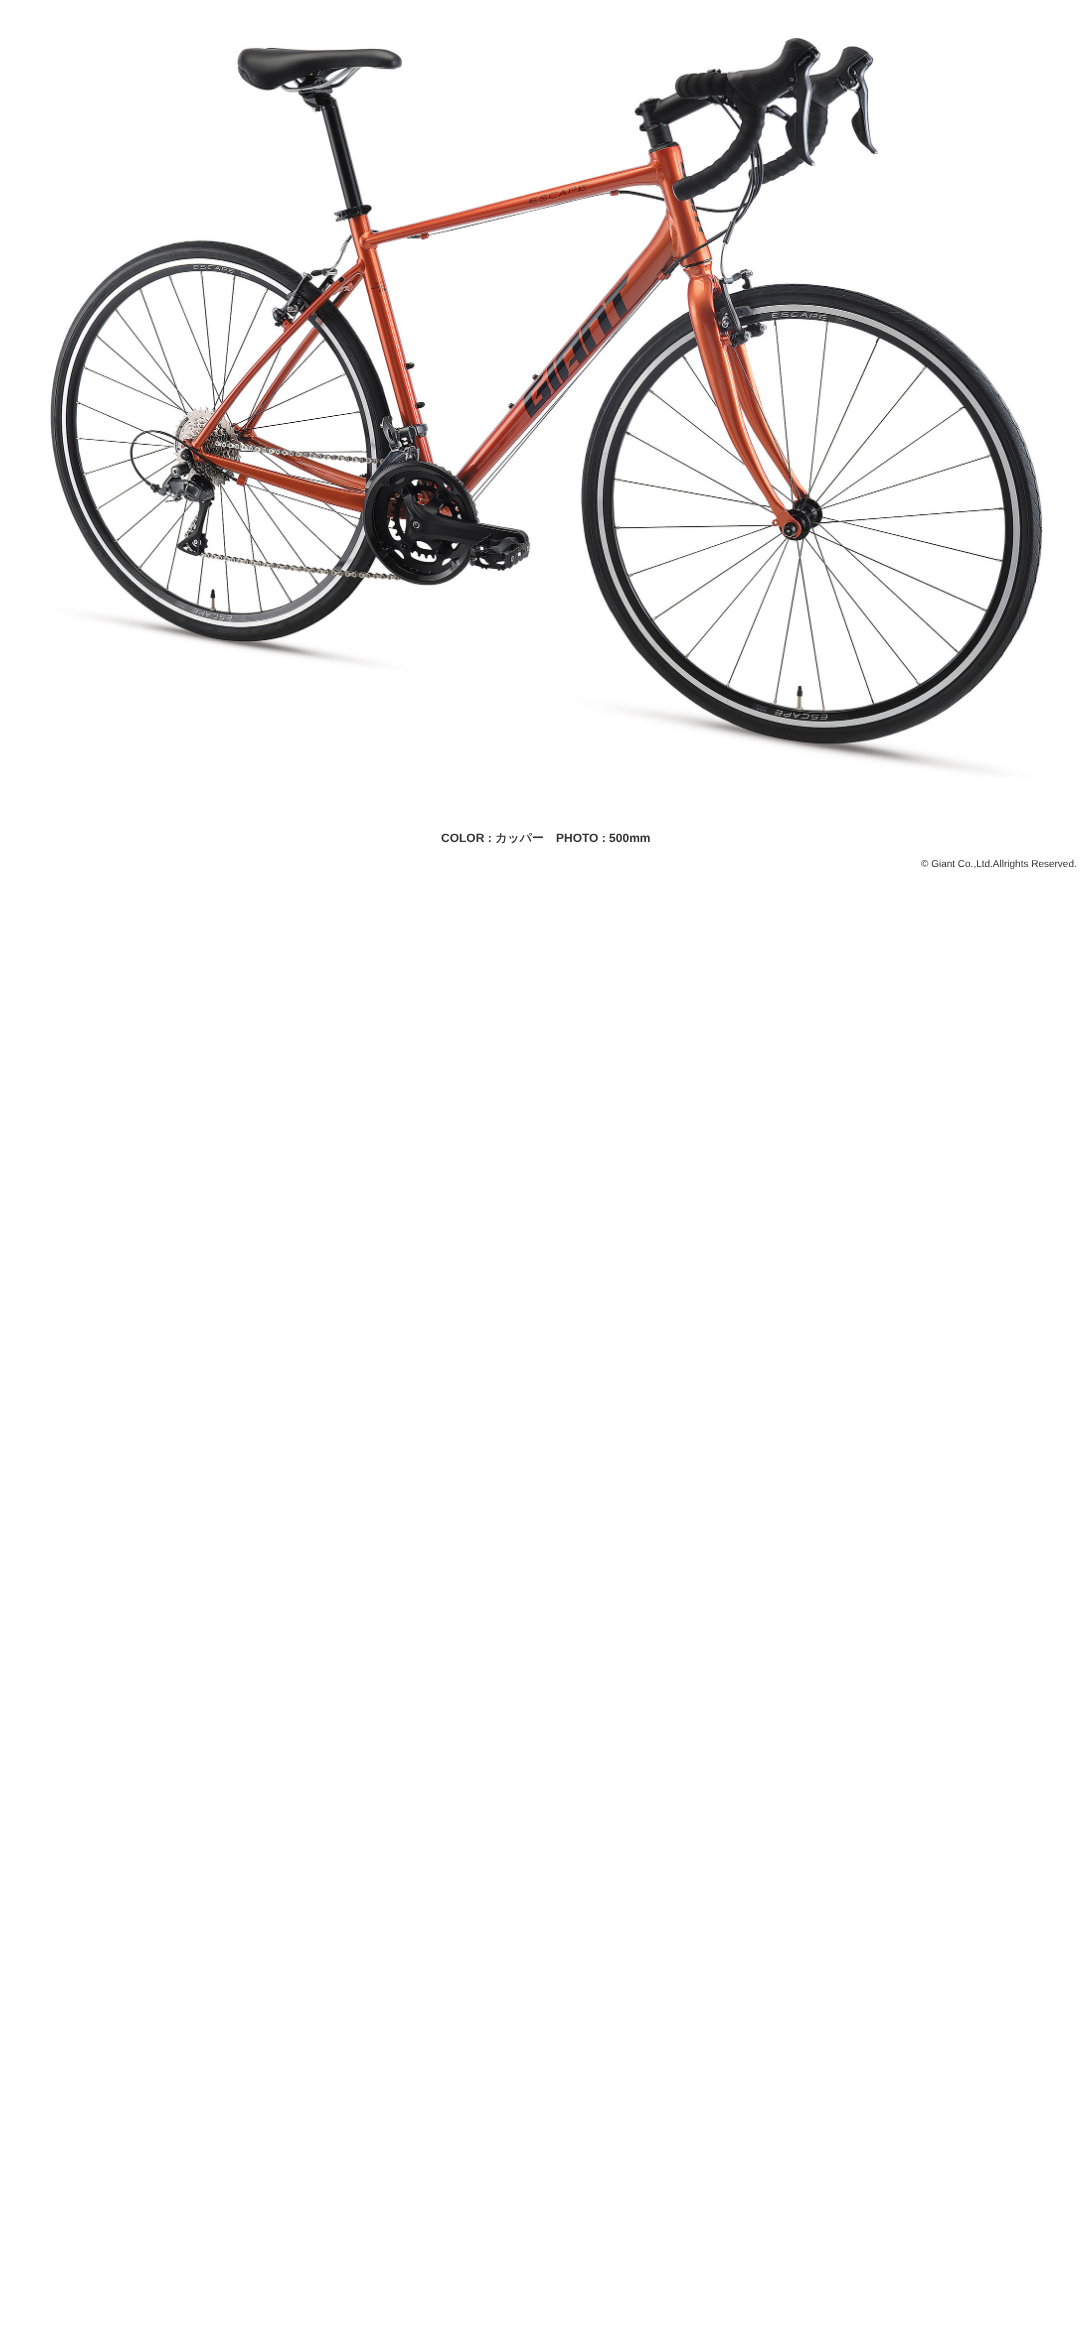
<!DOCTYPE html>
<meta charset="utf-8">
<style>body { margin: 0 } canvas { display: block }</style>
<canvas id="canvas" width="1092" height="2330"></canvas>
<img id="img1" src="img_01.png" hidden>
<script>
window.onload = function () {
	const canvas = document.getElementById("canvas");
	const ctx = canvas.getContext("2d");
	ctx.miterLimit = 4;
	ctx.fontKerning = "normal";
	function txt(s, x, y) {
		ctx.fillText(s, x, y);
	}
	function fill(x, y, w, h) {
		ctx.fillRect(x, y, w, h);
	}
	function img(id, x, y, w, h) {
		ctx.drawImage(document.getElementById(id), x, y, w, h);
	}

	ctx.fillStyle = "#FFFFFF";
	fill(0, 0, 1092, 2330);
	img("img1", 49, 38, 994, 739);
	ctx.font = "bold 12px Liberation Sans";
	ctx.fillStyle = "#333333";
	txt("COLOR :", 441, 842);
	ctx.font = "bold 12px WenQuanYi Zen Hei";
	txt("カッパー", 495, 842);
	ctx.font = "bold 12px Liberation Sans";
	txt("PHOTO : 500mm", 556, 842);
	ctx.font = "10px Liberation Sans";
	txt("© Giant Co.,Ltd.Allrights Reserved.", 921, 867);
};
</script>
